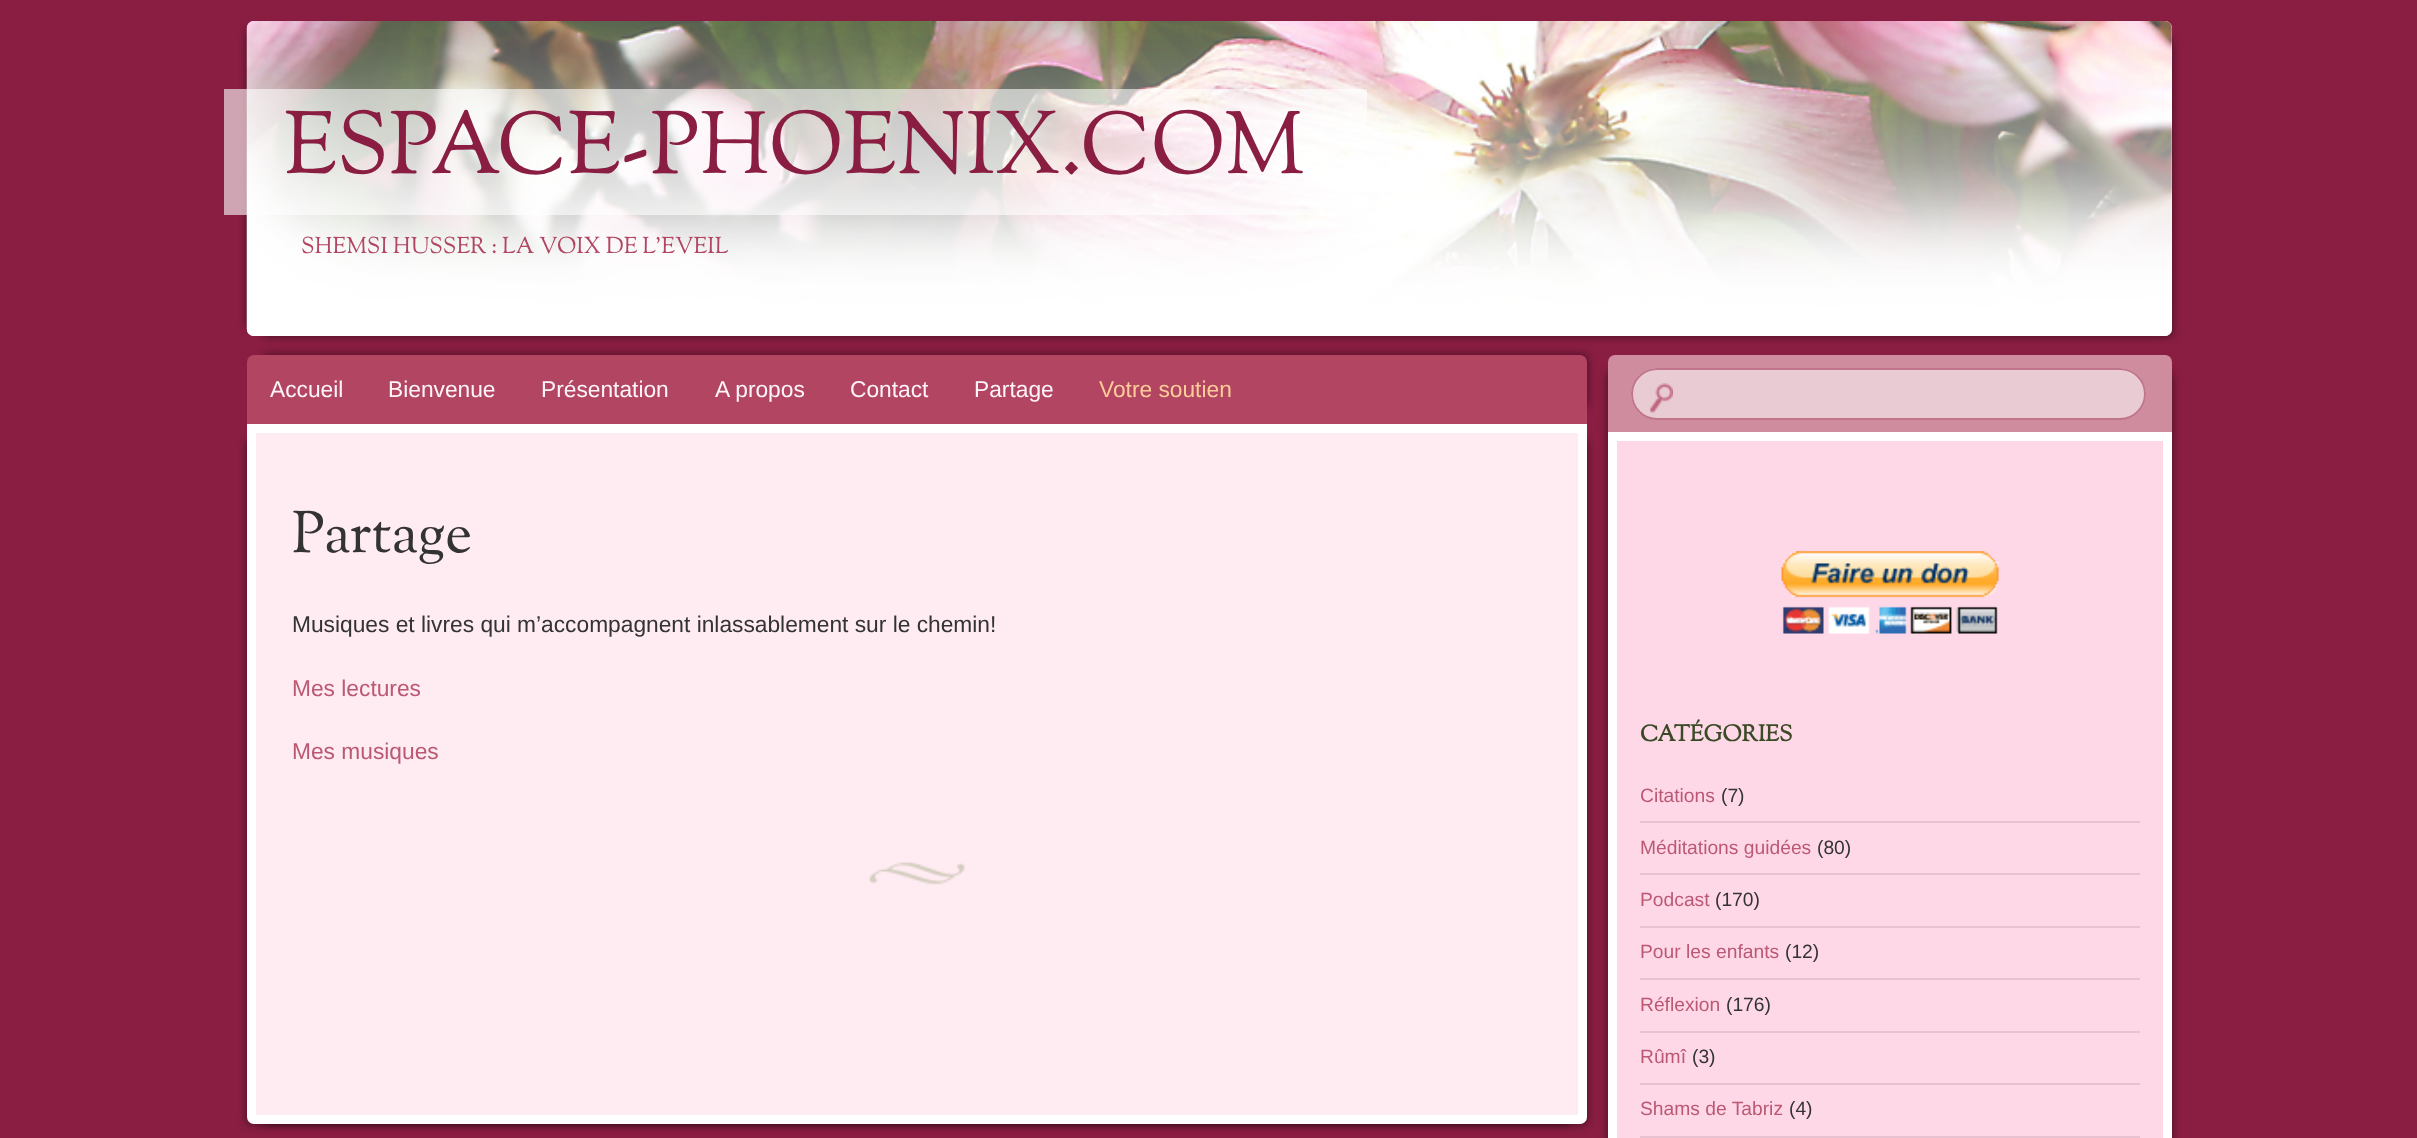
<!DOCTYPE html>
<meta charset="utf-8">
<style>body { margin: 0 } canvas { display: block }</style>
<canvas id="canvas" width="2417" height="1138"></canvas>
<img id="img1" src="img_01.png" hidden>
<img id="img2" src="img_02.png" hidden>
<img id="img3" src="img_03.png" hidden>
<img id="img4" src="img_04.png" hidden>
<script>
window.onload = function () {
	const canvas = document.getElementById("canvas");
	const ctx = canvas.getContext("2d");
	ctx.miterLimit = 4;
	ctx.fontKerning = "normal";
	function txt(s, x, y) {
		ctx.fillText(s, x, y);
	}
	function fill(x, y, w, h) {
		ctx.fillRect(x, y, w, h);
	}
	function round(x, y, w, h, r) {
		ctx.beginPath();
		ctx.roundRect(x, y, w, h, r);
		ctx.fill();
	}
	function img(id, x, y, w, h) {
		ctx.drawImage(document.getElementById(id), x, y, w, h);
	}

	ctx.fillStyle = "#891E42";
	fill(0, 0, 2417, 1138);
	ctx.fillStyle = "rgba(0, 0, 0, 0.5)";
	ctx.filter = "blur(4.5px)";
	ctx.beginPath();
	ctx.rect(247, 30, 1907, 297);
	ctx.fill();
	ctx.filter = "none";
	ctx.filter = "blur(4.5px)";
	ctx.beginPath();
	ctx.rect(264, 39, 1908, 297);
	ctx.fill();
	ctx.filter = "none";
	ctx.fillStyle = "#FFFFFF";
	round(247, 21, 1925, 315, 7);
	img("img1", 246, 21, 1926, 315);
	ctx.fillStyle = "rgba(255, 255, 255, 0.6)";
	fill(224, 89, 1143, 126);
	ctx.fillStyle = "rgba(0, 0, 0, 0.5)";
	ctx.filter = "blur(4.5px)";
	ctx.beginPath();
	ctx.rect(264, 355, 1323, 51);
	ctx.fill();
	ctx.filter = "none";
	ctx.fillStyle = "#B14562";
	ctx.beginPath();
	ctx.roundRect(247, 355, 1340, 69, [7, 7, 0, 0]);
	ctx.fill();
	ctx.fillStyle = "rgba(0, 0, 0, 0.5)";
	ctx.filter = "blur(4.5px)";
	ctx.beginPath();
	ctx.rect(247, 441, 1323, 683);
	ctx.fill();
	ctx.filter = "none";
	ctx.filter = "blur(4.5px)";
	ctx.beginPath();
	ctx.rect(264, 441, 1323, 683);
	ctx.fill();
	ctx.filter = "none";
	ctx.fillStyle = "#FFEBF2";
	ctx.beginPath();
	ctx.roundRect(251.5, 428.5, 1331, 691, [0, 0, 2.5, 2.5]);
	ctx.fill();
	ctx.strokeStyle = "#FFFFFF";
	ctx.lineWidth = 9;
	ctx.stroke();
	img("img2", 869, 862, 96, 23);
	ctx.fillStyle = "rgba(0, 0, 0, 0.5)";
	ctx.filter = "blur(4.5px)";
	ctx.beginPath();
	ctx.rect(1608, 373, 546, 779);
	ctx.fill();
	ctx.filter = "none";
	ctx.filter = "blur(4.5px)";
	ctx.beginPath();
	ctx.rect(1626, 373, 546, 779);
	ctx.fill();
	ctx.filter = "none";
	ctx.fillStyle = "#CF8C9E";
	ctx.beginPath();
	ctx.roundRect(1608, 355, 564, 77, [7, 7, 0, 0]);
	ctx.fill();
	ctx.fillStyle = "#E9CBD3";
	round(1631, 368, 515, 52, 26);
	img("img3", 1650, 383, 23, 30);
	ctx.beginPath();
	ctx.roundRect(1632, 369, 513, 50, 25);
	ctx.strokeStyle = "#C0758B";
	ctx.lineWidth = 2;
	ctx.stroke();
	ctx.fillStyle = "#FFD8E8";
	ctx.beginPath();
	ctx.rect(1612.5, 436.5, 555, 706);
	ctx.fill();
	ctx.strokeStyle = "#FFFFFF";
	ctx.lineWidth = 9;
	ctx.stroke();
	img("img4", 1781, 551, 218, 83);
	ctx.fillStyle = "#E9C2D2";
	fill(1640, 821, 500, 2);
	fill(1640, 873, 500, 2);
	fill(1640, 926, 500, 2);
	fill(1640, 978, 500, 2);
	fill(1640, 1031, 500, 2);
	fill(1640, 1083, 500, 2);
	fill(1640, 1136, 500, 2);
	ctx.font = "87.5px Sorts Mill Goudy";
	ctx.fillStyle = "#891E42";
	txt("ESPACE-PHOENIX.COM", 284, 173);
	ctx.font = "22.75px Sorts Mill Goudy";
	ctx.fillStyle = "#B14562";
	txt("SHEMSI HUSSER : LA VOIX DE L'EVEIL", 301, 253);
	ctx.font = "22.75px Liberation Sans";
	ctx.fillStyle = "#FFF4F9";
	txt("Accueil", 270, 397);
	txt("Bienvenue", 388, 397);
	txt("Présentation", 541, 397);
	txt("A propos", 715, 397);
	txt("Contact", 850, 397);
	txt("Partage", 974, 397);
	ctx.fillStyle = "#FFCC99";
	txt("Votre soutien", 1099, 397);
	ctx.font = "58px Sorts Mill Goudy";
	ctx.fillStyle = "#333333";
	txt("Partage", 292, 552);
	ctx.font = "22.75px Liberation Sans";
	txt("Musiques et livres qui m’accompagnent inlassablement sur le chemin!", 292, 632);
	ctx.fillStyle = "#BB5974";
	txt("Mes lectures", 292, 696);
	txt("Mes musiques", 292, 759);
	ctx.font = "bold 22.75px Sorts Mill Goudy";
	ctx.fillStyle = "#3B4A26";
	txt("CATÉGORIES", 1640, 741);
	ctx.font = "19.25px Liberation Sans";
	ctx.fillStyle = "#BB5974";
	txt("Citations", 1640, 802);
	ctx.fillStyle = "#333333";
	txt("(7)", 1721, 802);
	ctx.fillStyle = "#BB5974";
	txt("Méditations guidées", 1640, 854);
	ctx.fillStyle = "#333333";
	txt("(80)", 1817, 854);
	ctx.fillStyle = "#BB5974";
	txt("Podcast", 1640, 906);
	ctx.fillStyle = "#333333";
	txt("(170)", 1715, 906);
	ctx.fillStyle = "#BB5974";
	txt("Pour les enfants", 1640, 958);
	ctx.fillStyle = "#333333";
	txt("(12)", 1785, 958);
	ctx.fillStyle = "#BB5974";
	txt("Réflexion", 1640, 1011);
	ctx.fillStyle = "#333333";
	txt("(176)", 1726, 1011);
	ctx.fillStyle = "#BB5974";
	txt("Rûmî", 1640, 1063);
	ctx.fillStyle = "#333333";
	txt("(3)", 1692, 1063);
	ctx.fillStyle = "#BB5974";
	txt("Shams de Tabriz", 1640, 1115);
	ctx.fillStyle = "#333333";
	txt("(4)", 1789, 1115);
};
</script>
